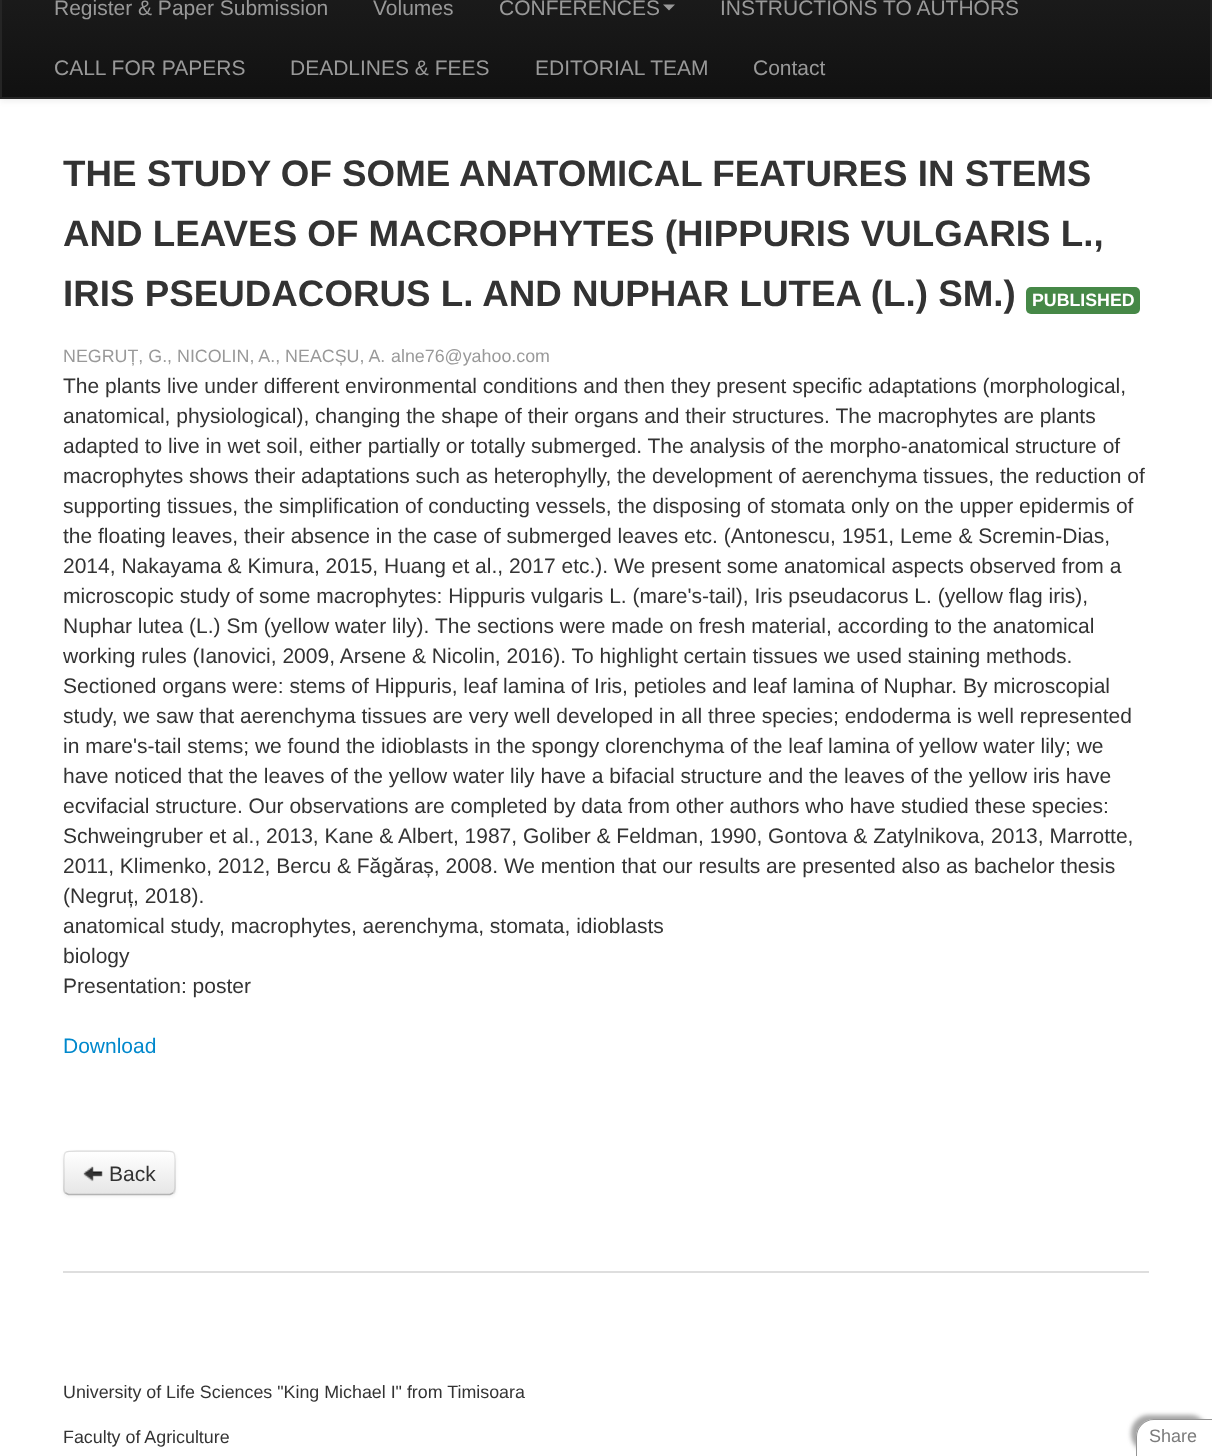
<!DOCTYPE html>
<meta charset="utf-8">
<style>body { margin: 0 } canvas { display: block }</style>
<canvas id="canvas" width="1212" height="1456"></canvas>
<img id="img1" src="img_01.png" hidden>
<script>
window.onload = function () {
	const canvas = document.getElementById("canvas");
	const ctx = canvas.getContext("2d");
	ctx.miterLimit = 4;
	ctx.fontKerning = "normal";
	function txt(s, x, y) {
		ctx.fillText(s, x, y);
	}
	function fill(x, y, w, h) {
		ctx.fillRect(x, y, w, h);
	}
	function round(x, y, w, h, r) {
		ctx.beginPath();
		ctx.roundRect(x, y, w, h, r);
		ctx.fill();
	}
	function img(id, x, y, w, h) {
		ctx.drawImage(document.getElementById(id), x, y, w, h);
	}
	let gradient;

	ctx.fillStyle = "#FFFFFF";
	fill(0, 0, 1212, 1456);
	ctx.fillStyle = "rgba(0, 0, 0, 0.07)";
	ctx.filter = "blur(3px)";
	ctx.beginPath();
	ctx.rect(0, -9, 1212, 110);
	ctx.fill();
	ctx.filter = "none";
	gradient = ctx.createLinearGradient(606, -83, 606, 98);
	gradient.addColorStop(0, "#222222");
	gradient.addColorStop(1, "#111111");
	ctx.fillStyle = gradient;
	fill(2, 0, 1208, 97);
	ctx.strokeStyle = "#252525";
	ctx.lineWidth = 2;
	ctx.strokeRect(1, -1, 1210, 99);
	ctx.fillStyle = "#999999";
	ctx.beginPath();
	ctx.moveTo(663, 4.5);
	ctx.lineTo(675, 4.5);
	ctx.lineTo(669, 10.5);
	ctx.closePath();
	ctx.fill();
	ctx.fillStyle = "#468847";
	round(1026, 287, 114, 27, 5);
	ctx.fillStyle = "rgba(0, 0, 0, 0.05)";
	ctx.filter = "blur(1.5px)";
	ctx.beginPath();
	ctx.roundRect(63, 1152, 113, 45, 6);
	ctx.fill();
	ctx.filter = "none";
	ctx.fillStyle = "#F5F5F5";
	round(63, 1151, 113, 45, 6);
	ctx.save();
	ctx.beginPath();
	ctx.roundRect(63, 1151, 113, 45, 6);
	ctx.clip();
	gradient = ctx.createLinearGradient(119, 1152, 119, 1194);
	gradient.addColorStop(0, "#FFFFFF");
	gradient.addColorStop(1, "#E6E6E6");
	ctx.fillStyle = gradient;
	fill(63, 1152, 113, 42);
	ctx.restore();
	ctx.beginPath();
	ctx.moveTo(173, 1193);
	ctx.lineTo(170, 1194.5);
	ctx.lineTo(68.5, 1194.5);
	ctx.lineTo(65.5, 1193);
	ctx.strokeStyle = "#B3B3B3";
	ctx.lineWidth = 1.5;
	ctx.stroke();
	ctx.beginPath();
	ctx.moveTo(65.5, 1193);
	ctx.bezierCurveTo(63, 1191, 64, 1187, 64, 1184);
	ctx.lineTo(64, 1173);
	ctx.bezierCurveTo(64, 1148, 60, 1151, 86, 1151);
	ctx.lineTo(153, 1151);
	ctx.bezierCurveTo(178.5, 1151, 175, 1148, 175, 1173);
	ctx.lineTo(175, 1184);
	ctx.bezierCurveTo(175, 1187, 175.5, 1191, 173, 1193);
	ctx.strokeStyle = "rgba(0, 0, 0, 0.1)";
	ctx.stroke();
	img("img1", 83, 1166, 20, 16);
	ctx.fillStyle = "#DEDEDE";
	fill(63, 1271, 1086, 2);
	ctx.save();
	ctx.beginPath();
	ctx.moveTo(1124, 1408);
	ctx.lineTo(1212, 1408);
	ctx.lineTo(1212, 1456);
	ctx.lineTo(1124, 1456);
	ctx.closePath();
	ctx.moveTo(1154, 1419);
	ctx.lineTo(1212, 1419);
	ctx.lineTo(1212, 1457);
	ctx.lineTo(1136, 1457);
	ctx.lineTo(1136, 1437);
	ctx.bezierCurveTo(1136, 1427, 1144, 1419, 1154, 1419);
	ctx.closePath();
	ctx.clip("evenodd");
	ctx.fillStyle = "rgba(77, 77, 77, 0.5)";
	ctx.filter = "blur(2px)";
	ctx.beginPath();
	ctx.roundRect(1131, 1415, 77, 37, 18);
	ctx.fill();
	ctx.filter = "none";
	ctx.restore();
	ctx.fillStyle = "#949494";
	ctx.beginPath();
	ctx.moveTo(1154, 1419);
	ctx.lineTo(1212, 1419);
	ctx.lineTo(1212, 1456);
	ctx.lineTo(1136, 1456);
	ctx.lineTo(1136, 1437);
	ctx.bezierCurveTo(1136, 1427, 1144, 1419, 1154, 1419);
	ctx.closePath();
	ctx.moveTo(1154, 1420);
	ctx.lineTo(1212, 1420);
	ctx.lineTo(1212, 1456);
	ctx.lineTo(1137, 1456);
	ctx.lineTo(1137, 1437);
	ctx.bezierCurveTo(1137, 1428, 1144, 1420, 1154, 1420);
	ctx.closePath();
	ctx.fill("evenodd");
	ctx.font = "21px Liberation Sans";
	ctx.fillStyle = "#999999";
	txt("Register & Paper Submission", 54, 15);
	txt("Volumes", 373, 15);
	txt("CONFERENCES", 499, 15);
	txt("INSTRUCTIONS TO AUTHORS", 720, 15);
	txt("CALL FOR PAPERS", 54, 75);
	txt("DEADLINES & FEES", 290, 75);
	txt("EDITORIAL TEAM", 535, 75);
	txt("Contact", 753, 75);
	ctx.font = "bold 36.75px Liberation Sans";
	ctx.fillStyle = "#333333";
	txt("THE STUDY OF SOME ANATOMICAL FEATURES IN STEMS", 63, 186);
	txt("AND LEAVES OF MACROPHYTES (HIPPURIS VULGARIS L.,", 63, 246);
	txt("IRIS PSEUDACORUS L. AND NUPHAR LUTEA (L.) SM.)", 63, 306);
	ctx.font = "bold 17.75px Liberation Sans";
	ctx.fillStyle = "#FFFFFF";
	txt("PUBLISHED", 1032, 306);
	ctx.font = "17.85px Liberation Sans";
	ctx.fillStyle = "#999999";
	txt("NEGRUȚ, G., NICOLIN, A., NEACȘU, A.", 63, 362);
	txt("alne76@yahoo.com", 391, 362);
	ctx.font = "21px Liberation Sans";
	ctx.fillStyle = "#333333";
	txt("The plants live under different environmental conditions and then they present specific adaptations (morphological,", 63, 393);
	txt("anatomical, physiological), changing the shape of their organs and their structures. The macrophytes are plants", 63, 423);
	txt("adapted to live in wet soil, either partially or totally submerged. The analysis of the morpho-anatomical structure of", 63, 453);
	txt("macrophytes shows their adaptations such as heterophylly, the development of aerenchyma tissues, the reduction of", 63, 483);
	txt("supporting tissues, the simplification of conducting vessels, the disposing of stomata only on the upper epidermis of", 63, 513);
	txt("the floating leaves, their absence in the case of submerged leaves etc. (Antonescu, 1951, Leme & Scremin-Dias,", 63, 543);
	txt("2014, Nakayama & Kimura, 2015, Huang et al., 2017 etc.). We present some anatomical aspects observed from a", 63, 573);
	txt("microscopic study of some macrophytes: Hippuris vulgaris L. (mare's-tail), Iris pseudacorus L. (yellow flag iris),", 63, 603);
	txt("Nuphar lutea (L.) Sm (yellow water lily). The sections were made on fresh material, according to the anatomical", 63, 633);
	txt("working rules (Ianovici, 2009, Arsene & Nicolin, 2016). To highlight certain tissues we used staining methods.", 63, 663);
	txt("Sectioned organs were: stems of Hippuris, leaf lamina of Iris, petioles and leaf lamina of Nuphar. By microscopial", 63, 693);
	txt("study, we saw that aerenchyma tissues are very well developed in all three species; endoderma is well represented", 63, 723);
	txt("in mare's-tail stems; we found the idioblasts in the spongy clorenchyma of the leaf lamina of yellow water lily; we", 63, 753);
	txt("have noticed that the leaves of the yellow water lily have a bifacial structure and the leaves of the yellow iris have", 63, 783);
	txt("ecvifacial structure. Our observations are completed by data from other authors who have studied these species:", 63, 813);
	txt("Schweingruber et al., 2013, Kane & Albert, 1987, Goliber & Feldman, 1990, Gontova & Zatylnikova, 2013, Marrotte,", 63, 843);
	txt("2011, Klimenko, 2012, Bercu & Făgăraș, 2008. We mention that our results are presented also as bachelor thesis", 63, 873);
	txt("(Negruț, 2018).", 63, 903);
	txt("anatomical study, macrophytes, aerenchyma, stomata, idioblasts", 63, 933);
	txt("biology", 63, 963);
	txt("Presentation: poster", 63, 993);
	ctx.fillStyle = "#0088CC";
	txt("Download", 63, 1053);
	ctx.fillStyle = "#333333";
	txt("Back", 109, 1181);
	ctx.font = "17.85px Liberation Sans";
	txt("University of Life Sciences \"King Michael I\" from Timisoara", 63, 1398);
	txt("Faculty of Agriculture", 63, 1443);
	ctx.font = "18px Liberation Sans";
	ctx.fillStyle = "#7C7C7C";
	txt("Share", 1149, 1442);
};
</script>
